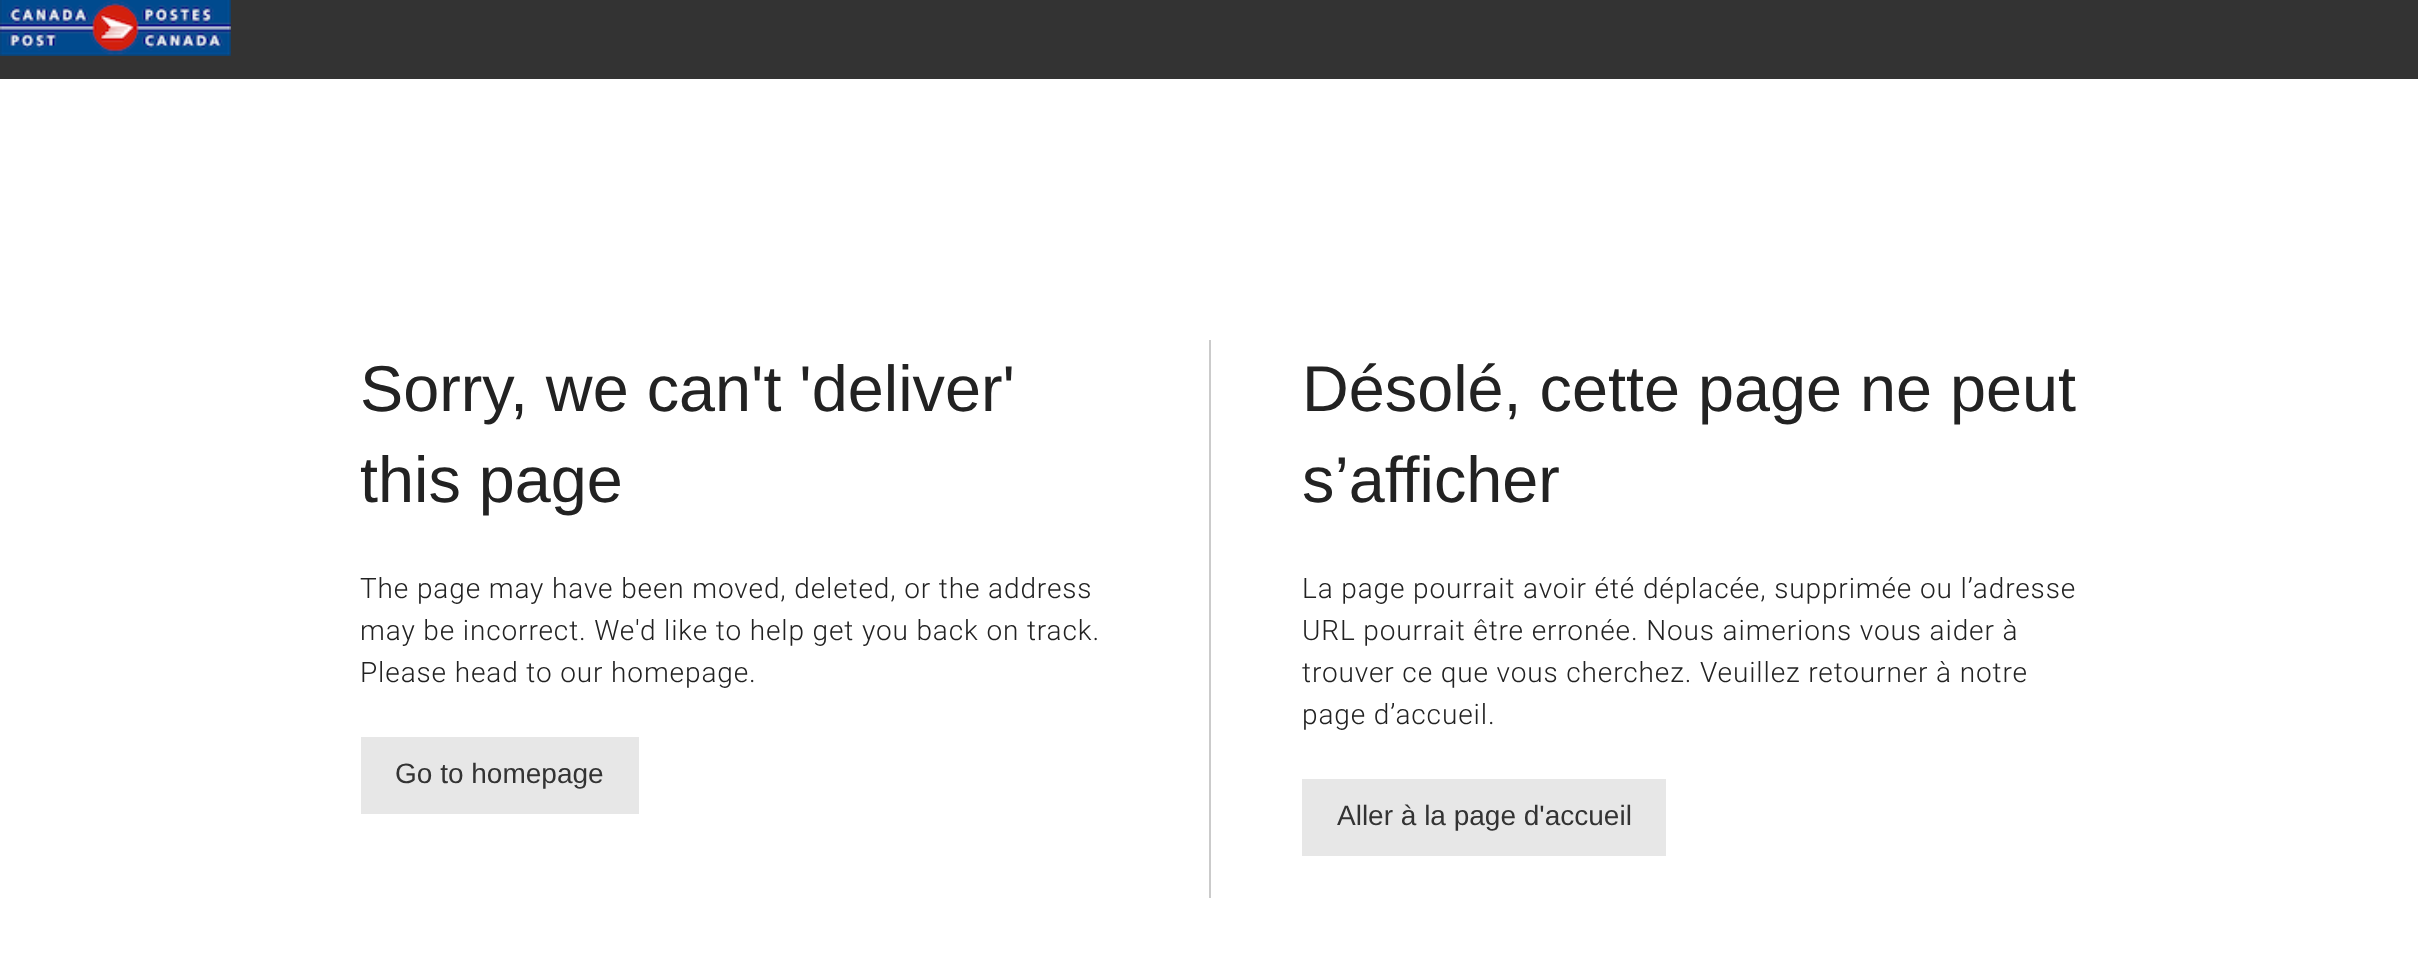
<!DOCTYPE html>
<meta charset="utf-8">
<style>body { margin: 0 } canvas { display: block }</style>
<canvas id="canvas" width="2418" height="972"></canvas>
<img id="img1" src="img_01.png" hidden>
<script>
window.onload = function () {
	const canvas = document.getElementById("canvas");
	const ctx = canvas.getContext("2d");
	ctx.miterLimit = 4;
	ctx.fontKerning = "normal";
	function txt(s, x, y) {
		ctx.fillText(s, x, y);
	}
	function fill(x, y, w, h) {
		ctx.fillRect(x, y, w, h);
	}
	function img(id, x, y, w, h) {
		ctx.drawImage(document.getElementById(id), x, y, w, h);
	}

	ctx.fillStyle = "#FFFFFF";
	fill(0, 0, 2418, 972);
	ctx.fillStyle = "#333333";
	fill(0, 0, 2418, 79);
	img("img1", 0, 0, 231, 56);
	ctx.fillStyle = "#E7E7E7";
	fill(361, 737, 278, 77);
	ctx.fillStyle = "#CBCBCB";
	fill(1209, 340, 2, 558);
	ctx.fillStyle = "#E7E7E7";
	fill(1302, 779, 364, 77);
	ctx.font = "64.75px Liberation Sans";
	ctx.fillStyle = "#222222";
	txt("Sorry, we can't 'deliver'", 360, 411);
	txt("this page", 360, 502);
	ctx.letterSpacing = "0.88px";
	ctx.font = "300 28px Roboto";
	txt("The page may have been moved, deleted, or the address", 360, 598);
	txt("may be incorrect. We'd like to help get you back on track.", 360, 640);
	txt("Please head to our homepage.", 360, 682);
	ctx.letterSpacing = "0px";
	ctx.font = "28px Liberation Sans";
	ctx.fillStyle = "#333333";
	txt("Go to homepage", 395, 783);
	ctx.font = "64.75px Liberation Sans";
	ctx.fillStyle = "#222222";
	txt("Désolé, cette page ne peut", 1302, 411);
	txt("s’afficher", 1302, 502);
	ctx.letterSpacing = "0.88px";
	ctx.font = "300 28px Roboto";
	txt("La page pourrait avoir été déplacée, supprimée ou l’adresse", 1302, 598);
	txt("URL pourrait être erronée. Nous aimerions vous aider à", 1302, 640);
	txt("trouver ce que vous cherchez. Veuillez retourner à notre", 1302, 682);
	txt("page d’accueil.", 1302, 724);
	ctx.letterSpacing = "0px";
	ctx.font = "28px Liberation Sans";
	ctx.fillStyle = "#333333";
	txt("Aller à la page d'accueil", 1337, 825);
};
</script>
